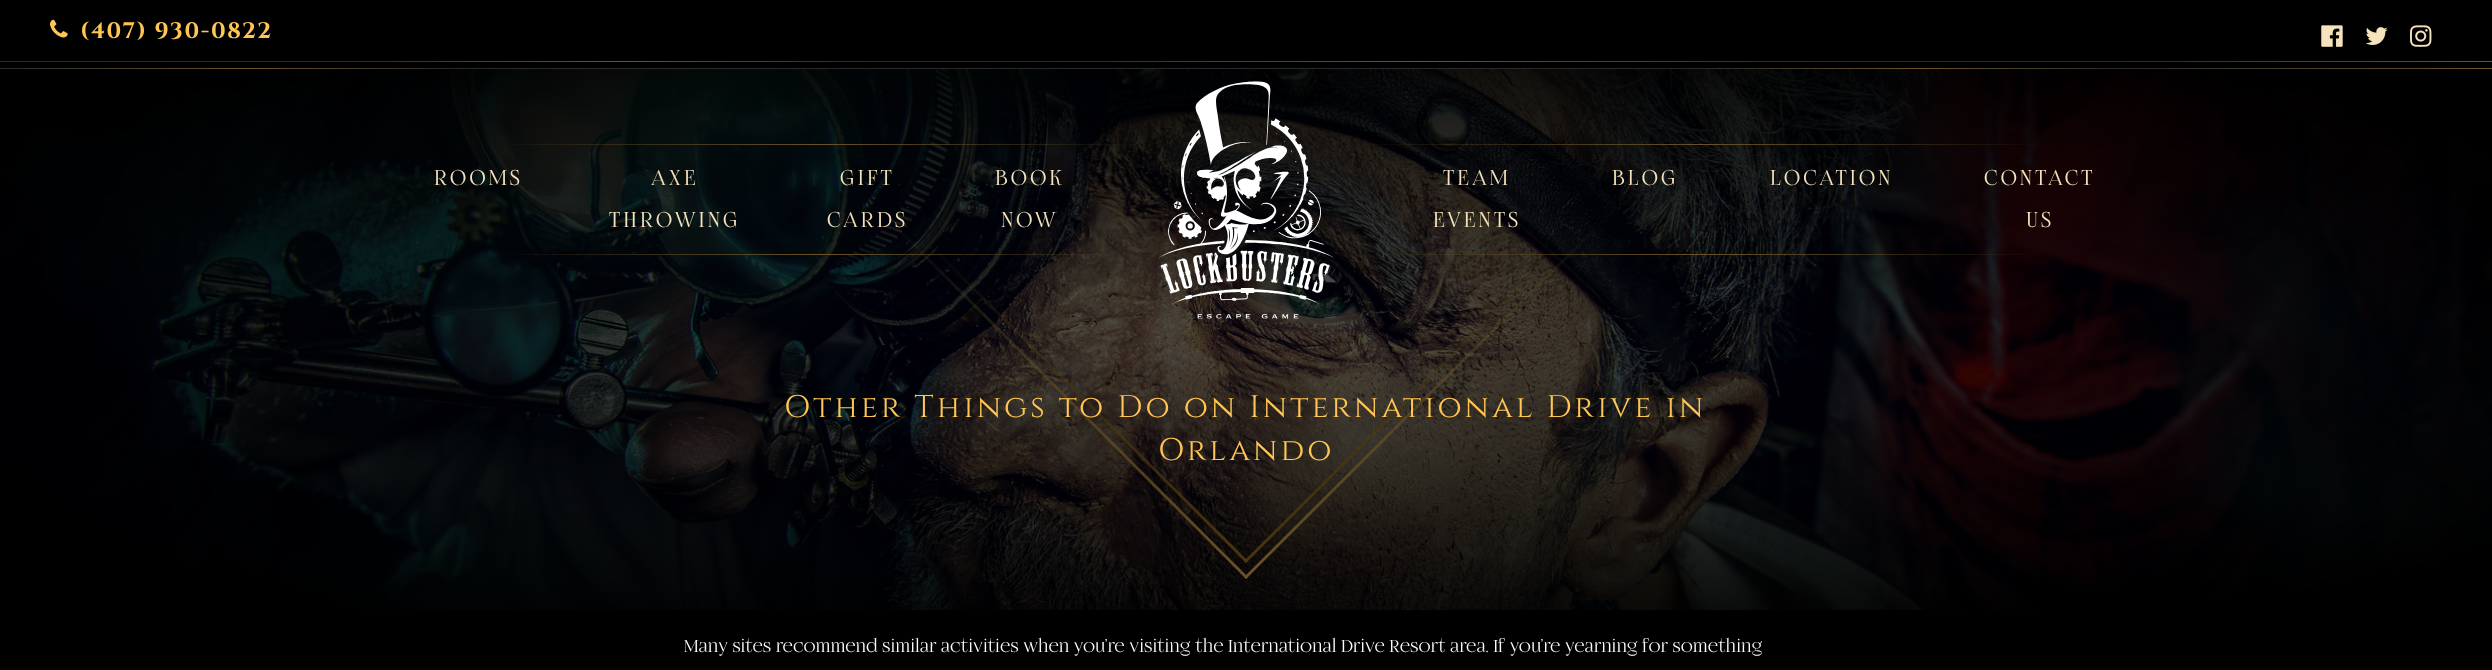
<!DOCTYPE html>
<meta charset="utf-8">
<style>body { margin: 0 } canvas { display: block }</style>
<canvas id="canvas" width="2492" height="670"></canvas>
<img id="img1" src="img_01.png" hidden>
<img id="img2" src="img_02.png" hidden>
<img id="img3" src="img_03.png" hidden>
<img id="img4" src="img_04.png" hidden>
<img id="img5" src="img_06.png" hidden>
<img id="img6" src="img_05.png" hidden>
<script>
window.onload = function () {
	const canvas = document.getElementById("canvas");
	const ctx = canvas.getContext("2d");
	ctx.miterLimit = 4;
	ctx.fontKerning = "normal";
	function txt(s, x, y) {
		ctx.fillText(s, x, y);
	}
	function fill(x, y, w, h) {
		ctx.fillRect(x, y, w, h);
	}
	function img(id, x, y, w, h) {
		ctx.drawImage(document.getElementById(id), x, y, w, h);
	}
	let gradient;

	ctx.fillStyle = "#000000";
	fill(0, 0, 2492, 670);
	img("img1", 50, 19, 18, 19);
	img("img2", 2321, 25, 22, 22);
	img("img3", 2365, 27, 23, 18);
	img("img4", 2410, 25, 22, 22);
	gradient = ctx.createLinearGradient(0, 62, 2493, 62);
	gradient.addColorStop(0, "#2A2A2A");
	gradient.addColorStop(0.14, "#2A2A2A");
	gradient.addColorStop(0.25, "#6A5326");
	gradient.addColorStop(0.35, "#2A2A2A");
	gradient.addColorStop(0.42, "#2A2A2A");
	gradient.addColorStop(0.57, "#6A5326");
	gradient.addColorStop(0.73, "#2A2A2A");
	gradient.addColorStop(0.85, "#2A2A2A");
	gradient.addColorStop(1, "#6A5326");
	ctx.fillStyle = gradient;
	fill(0, 61, 2492, 1);
	gradient = ctx.createLinearGradient(0, 68, 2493, 68);
	gradient.addColorStop(0, "#2A2A2A");
	gradient.addColorStop(0.1, "#6A5326");
	gradient.addColorStop(0.18, "#2A2A2A");
	gradient.addColorStop(0.68, "#2A2A2A");
	gradient.addColorStop(0.77, "#6A5326");
	gradient.addColorStop(0.85, "#2A2A2A");
	gradient.addColorStop(1, "#6A5326");
	ctx.fillStyle = gradient;
	fill(0, 68, 2492, 1);
	img("img5", 0, 69, 2492, 541);
	img("img6", 1159, 81, 175, 238);
	ctx.letterSpacing = "1.5px";
	ctx.font = "bold 22.5px Cinzel";
	ctx.fillStyle = "#FFC654";
	txt("(407) 930-0822", 80, 38);
	ctx.letterSpacing = "3.1px";
	ctx.font = "25px 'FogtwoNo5'";
	ctx.fillStyle = "#F6E3BD";
	txt("ROOMS", 434, 185);
	txt("AXE", 651, 185);
	txt("THROWING", 609, 227);
	txt("GIFT", 840, 185);
	txt("CARDS", 827, 227);
	txt("BOOK", 995, 185);
	txt("NOW", 1001, 227);
	txt("TEAM", 1443, 185);
	txt("EVENTS", 1433, 227);
	txt("BLOG", 1612, 185);
	txt("LOCATION", 1770, 185);
	txt("CONTACT", 1984, 185);
	txt("US", 2026, 227);
	ctx.font = "31.25px Cinzel";
	ctx.fillStyle = "#FFC654";
	txt("Other Things to Do on International Drive in", 784, 417);
	txt("Orlando", 1158, 460);
	ctx.letterSpacing = "0px";
	ctx.font = "20px 'FogtwoNo5'";
	ctx.fillStyle = "#FFFFFF";
	txt("Many sites recommend similar activities when you’re visiting the International Drive Resort area. If you’re yearning for something", 684, 652);
};
</script>
